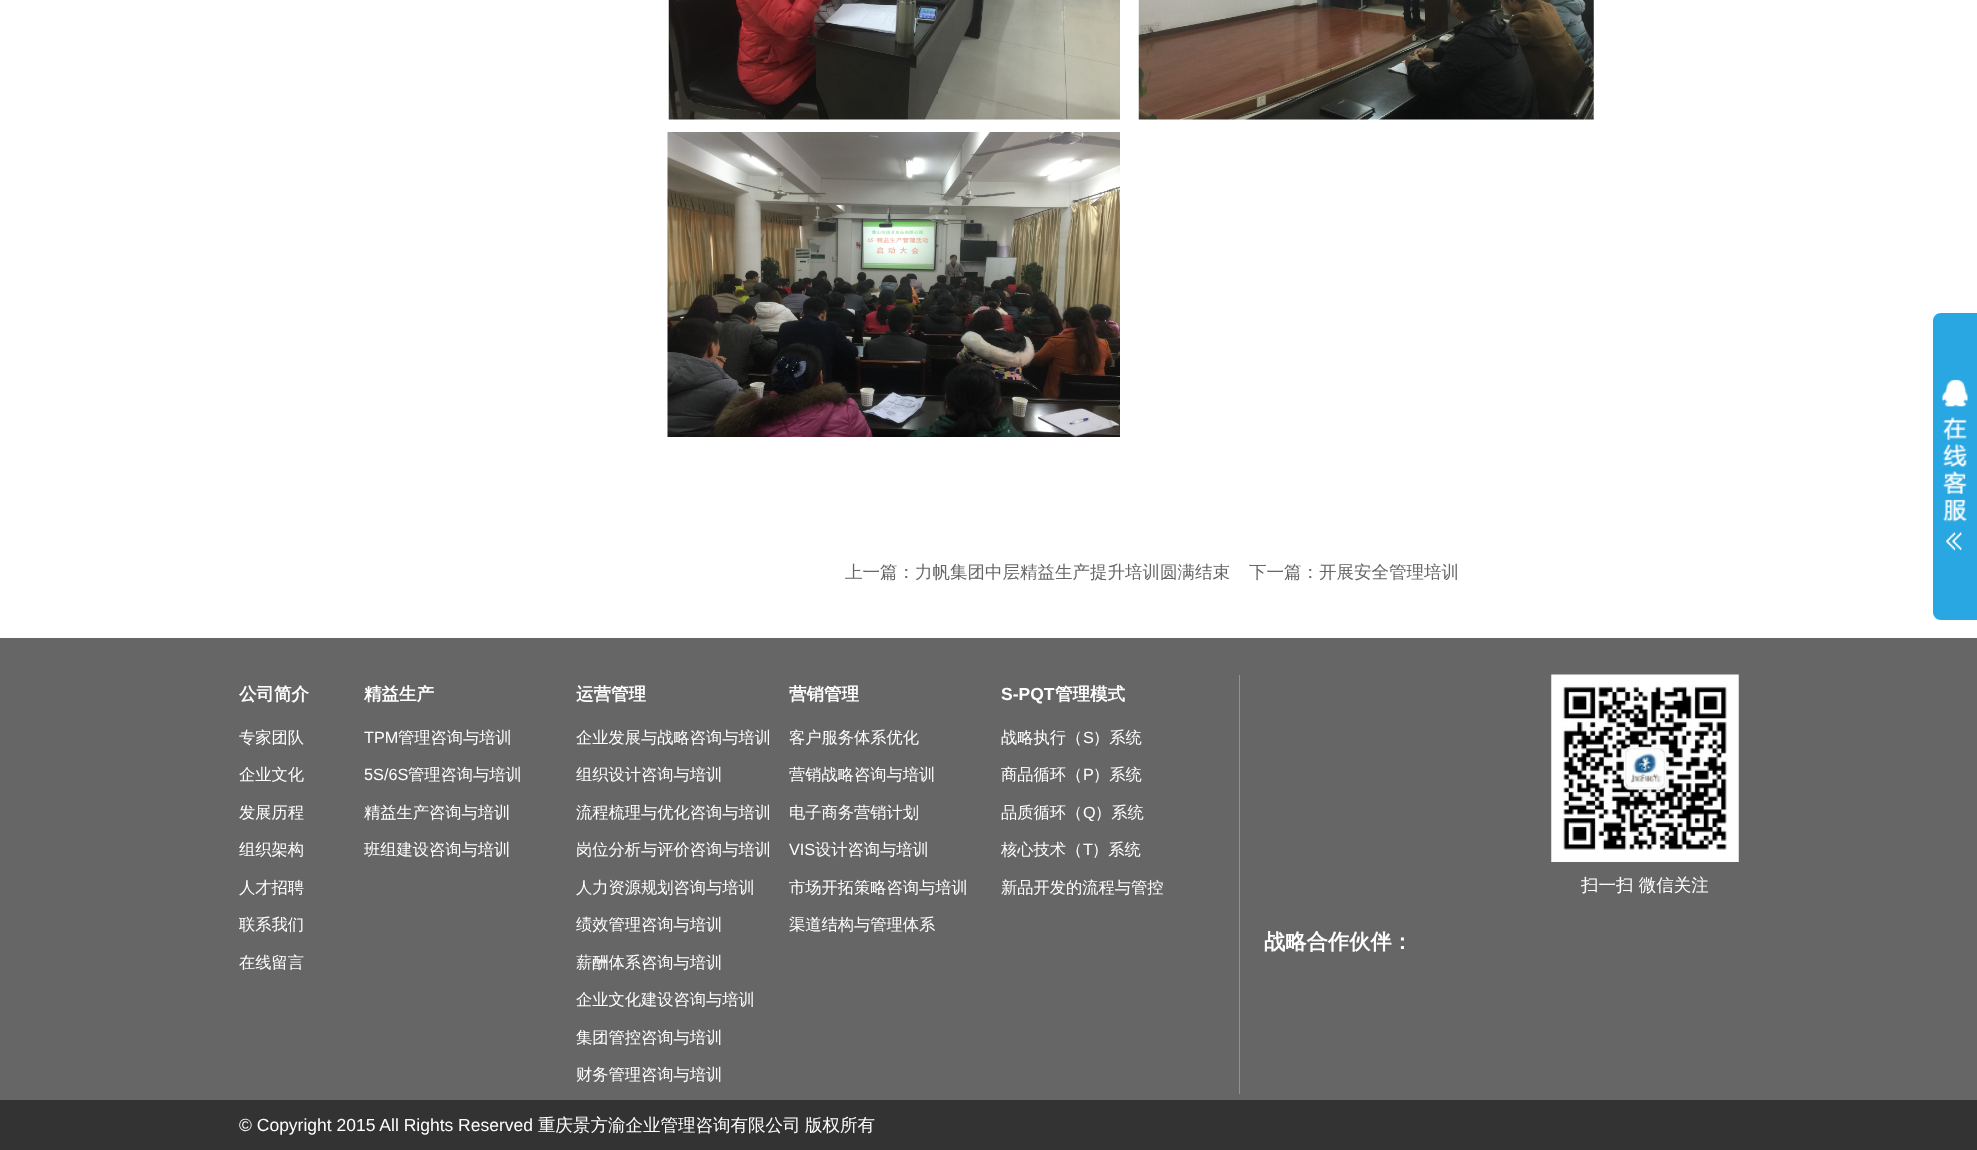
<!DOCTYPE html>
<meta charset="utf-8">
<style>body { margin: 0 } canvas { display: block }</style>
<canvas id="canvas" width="1977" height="1150"></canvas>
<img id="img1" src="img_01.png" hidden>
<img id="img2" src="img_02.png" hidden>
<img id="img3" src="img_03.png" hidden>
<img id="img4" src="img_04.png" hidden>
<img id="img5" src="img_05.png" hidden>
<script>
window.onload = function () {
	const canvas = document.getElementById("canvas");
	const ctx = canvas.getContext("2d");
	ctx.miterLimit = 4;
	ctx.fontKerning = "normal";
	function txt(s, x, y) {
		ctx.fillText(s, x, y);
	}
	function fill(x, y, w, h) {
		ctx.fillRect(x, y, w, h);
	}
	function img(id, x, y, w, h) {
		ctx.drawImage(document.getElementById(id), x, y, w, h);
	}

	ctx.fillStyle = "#FFFFFF";
	fill(0, 0, 1977, 1150);
	img("img1", 668, 0, 452, 120);
	img("img2", 1138, 0, 456, 120);
	img("img3", 667, 132, 453, 305);
	ctx.fillStyle = "#29A7E2";
	ctx.beginPath();
	ctx.moveTo(1941, 313);
	ctx.lineTo(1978, 313);
	ctx.lineTo(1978, 620);
	ctx.lineTo(1941, 620);
	ctx.bezierCurveTo(1936.5, 620, 1933, 616.5, 1933, 612);
	ctx.lineTo(1933, 321);
	ctx.bezierCurveTo(1933, 316.5, 1936.5, 313, 1941, 313);
	ctx.closePath();
	ctx.fill();
	img("img4", 1942, 379, 26, 172);
	ctx.fillStyle = "#666666";
	fill(0, 638, 1977, 462);
	ctx.fillStyle = "#929292";
	fill(1239, 675, 1, 419);
	img("img5", 1551, 674, 188, 188);
	ctx.fillStyle = "#333333";
	fill(0, 1100, 1977, 50);
	ctx.font = "500 17.5px WenQuanYi Zen Hei";
	ctx.fillStyle = "#666666";
	txt("上一篇：力帆集团中层精益生产提升培训圆满结束", 845, 578);
	txt("下一篇：开展安全管理培训", 1249, 578);
	ctx.font = "bold 17.5px WenQuanYi Zen Hei";
	ctx.fillStyle = "#FFFFFF";
	txt("公司简介", 239, 700);
	ctx.font = "500 16.25px WenQuanYi Zen Hei";
	txt("专家团队", 239, 743);
	txt("企业文化", 239, 780);
	txt("发展历程", 239, 818);
	txt("组织架构", 239, 855);
	txt("人才招聘", 239, 893);
	txt("联系我们", 239, 930);
	txt("在线留言", 239, 968);
	ctx.font = "bold 17.5px WenQuanYi Zen Hei";
	txt("精益生产", 364, 700);
	ctx.font = "16.25px Liberation Sans";
	txt("TPM", 364, 743);
	ctx.font = "500 16.25px WenQuanYi Zen Hei";
	txt("管理咨询与培训", 398, 743);
	ctx.font = "16.25px Liberation Sans";
	txt("5S/6S", 364, 780);
	ctx.font = "500 16.25px WenQuanYi Zen Hei";
	txt("管理咨询与培训", 408, 780);
	txt("精益生产咨询与培训", 364, 818);
	txt("班组建设咨询与培训", 364, 855);
	ctx.font = "bold 17.5px WenQuanYi Zen Hei";
	txt("运营管理", 576, 700);
	ctx.font = "500 16.25px WenQuanYi Zen Hei";
	txt("企业发展与战略咨询与培训", 576, 743);
	txt("组织设计咨询与培训", 576, 780);
	txt("流程梳理与优化咨询与培训", 576, 818);
	txt("岗位分析与评价咨询与培训", 576, 855);
	txt("人力资源规划咨询与培训", 576, 893);
	txt("绩效管理咨询与培训", 576, 930);
	txt("薪酬体系咨询与培训", 576, 968);
	txt("企业文化建设咨询与培训", 576, 1005);
	txt("集团管控咨询与培训", 576, 1043);
	txt("财务管理咨询与培训", 576, 1080);
	ctx.font = "bold 17.5px WenQuanYi Zen Hei";
	txt("营销管理", 789, 700);
	ctx.font = "500 16.25px WenQuanYi Zen Hei";
	txt("客户服务体系优化", 789, 743);
	txt("营销战略咨询与培训", 789, 780);
	txt("电子商务营销计划", 789, 818);
	ctx.font = "16.25px Liberation Sans";
	txt("VIS", 789, 855);
	ctx.font = "500 16.25px WenQuanYi Zen Hei";
	txt("设计咨询与培训", 815, 855);
	txt("市场开拓策略咨询与培训", 789, 893);
	txt("渠道结构与管理体系", 789, 930);
	ctx.font = "bold 17.5px Liberation Sans";
	txt("S-PQT", 1001, 700);
	ctx.font = "bold 17.5px WenQuanYi Zen Hei";
	txt("管理模式", 1055, 700);
	ctx.font = "500 16.25px WenQuanYi Zen Hei";
	txt("战略执行（", 1001, 743);
	ctx.font = "16.25px Liberation Sans";
	txt("S", 1083, 743);
	ctx.font = "500 16.25px WenQuanYi Zen Hei";
	txt("）系统", 1093, 743);
	txt("商品循环（", 1001, 780);
	ctx.font = "16.25px Liberation Sans";
	txt("P", 1083, 780);
	ctx.font = "500 16.25px WenQuanYi Zen Hei";
	txt("）系统", 1093, 780);
	txt("品质循环（", 1001, 818);
	ctx.font = "16.25px Liberation Sans";
	txt("Q", 1083, 818);
	ctx.font = "500 16.25px WenQuanYi Zen Hei";
	txt("）系统", 1095, 818);
	txt("核心技术（", 1001, 855);
	ctx.font = "16.25px Liberation Sans";
	txt("T", 1083, 855);
	ctx.font = "500 16.25px WenQuanYi Zen Hei";
	txt("）系统", 1092, 855);
	txt("新品开发的流程与管控", 1001, 893);
	ctx.font = "500 17.5px WenQuanYi Zen Hei";
	txt("扫一扫 微信关注", 1581, 891);
	ctx.font = "bold 21.25px WenQuanYi Zen Hei";
	txt("战略合作伙伴：", 1264, 949);
	ctx.font = "17.5px Liberation Sans";
	txt("© Copyright 2015 All Rights Reserved", 239, 1131);
	ctx.font = "500 17.5px WenQuanYi Zen Hei";
	txt("重庆景方渝企业管理咨询有限公司", 538, 1131);
	txt("版权所有", 805, 1131);
};
</script>
